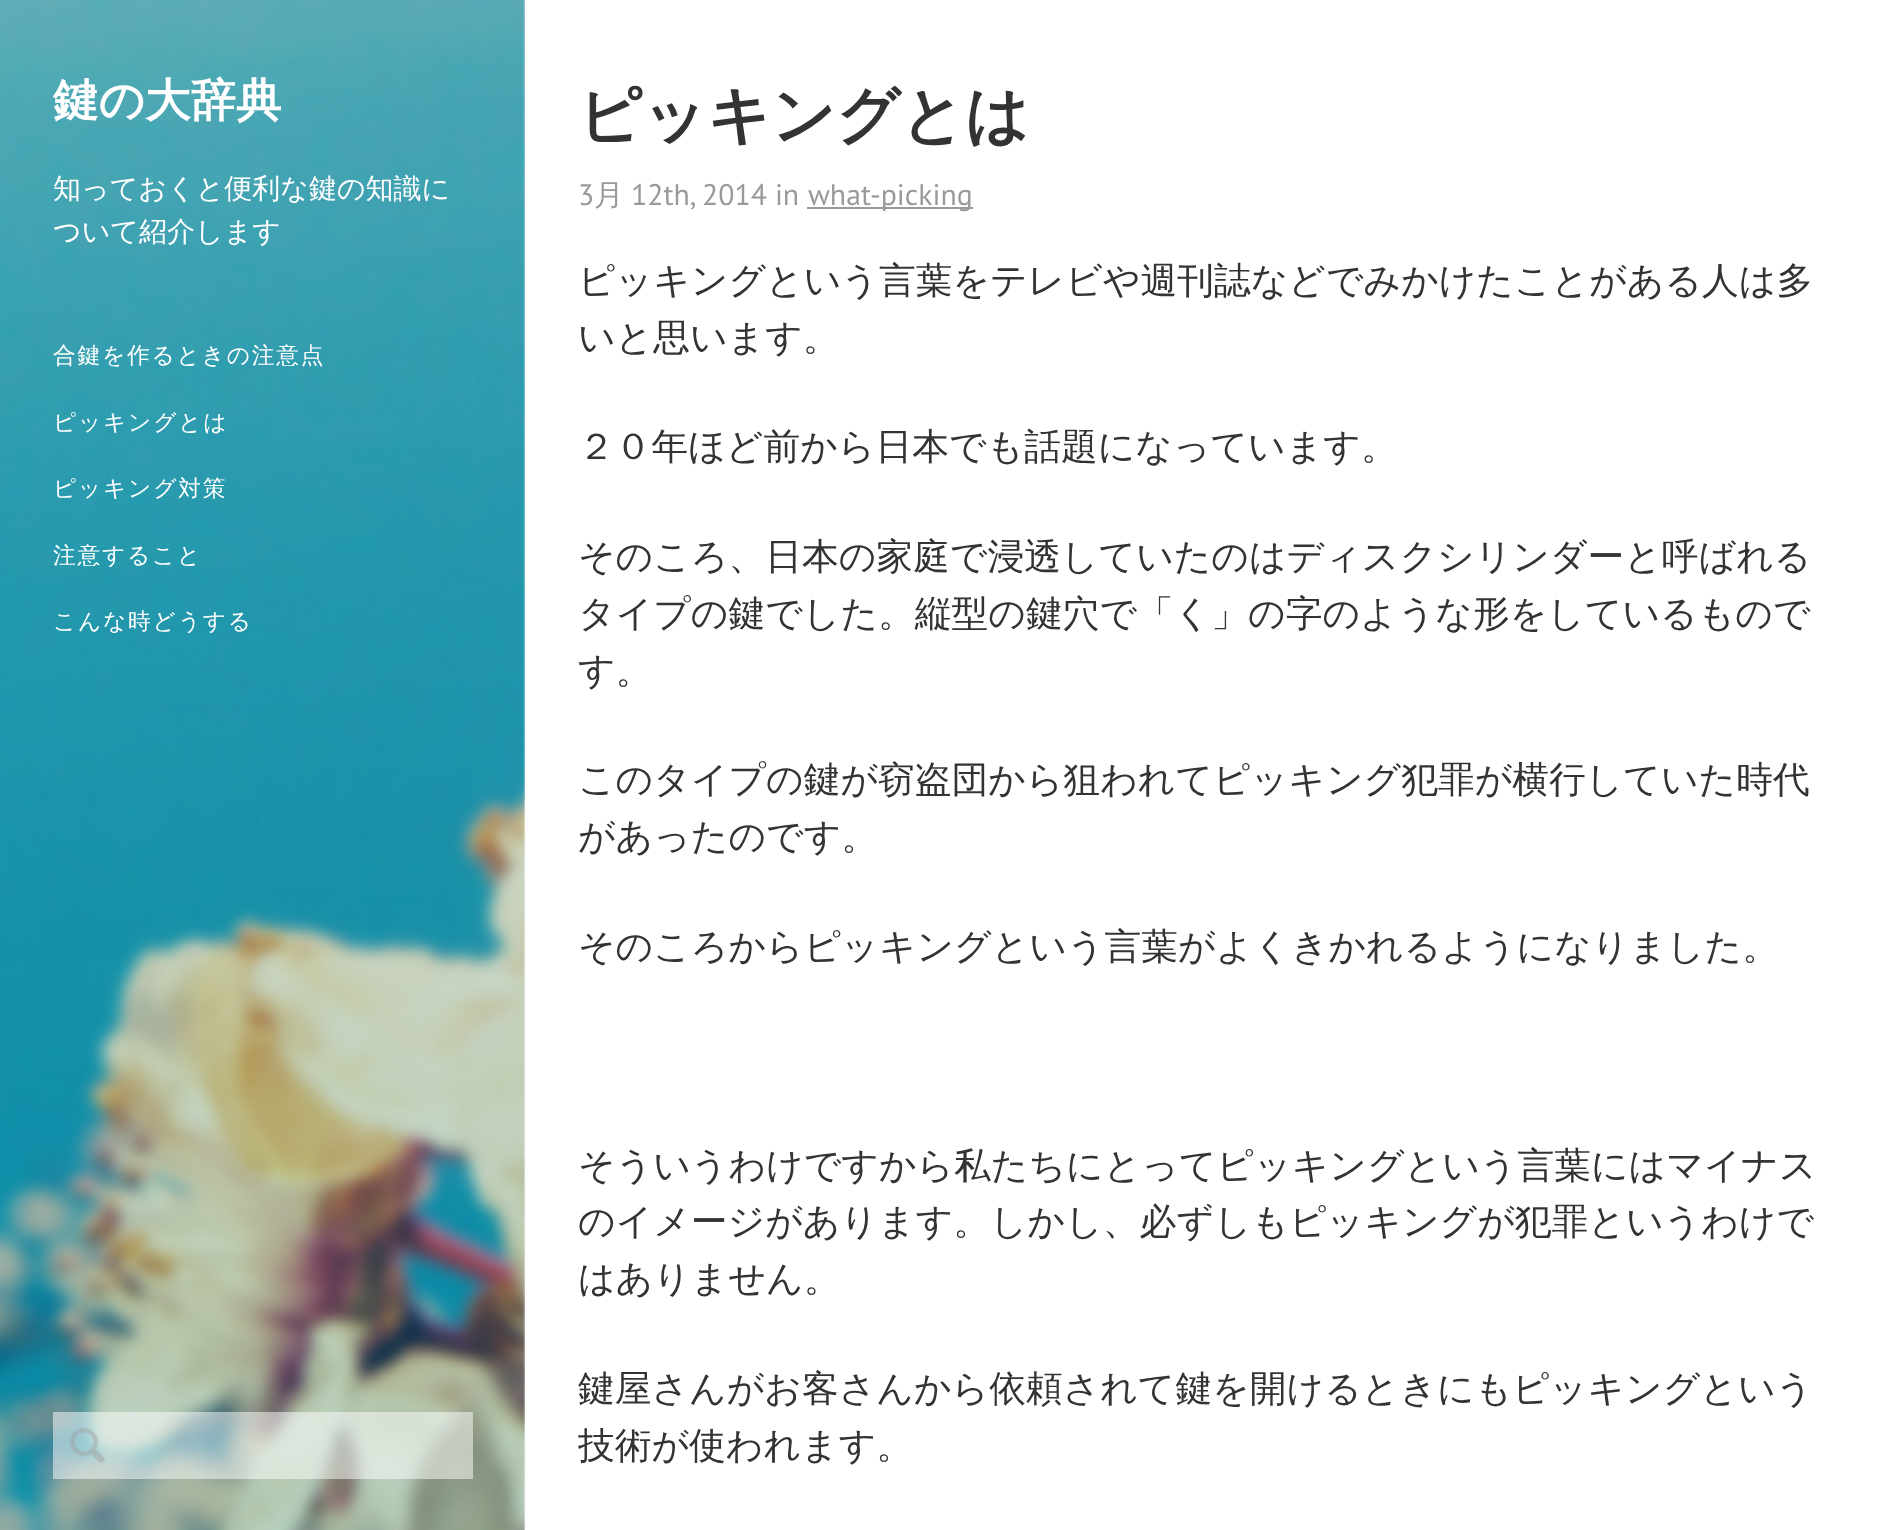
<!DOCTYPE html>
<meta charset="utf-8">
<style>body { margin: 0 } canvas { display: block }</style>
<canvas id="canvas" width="1892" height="1530"></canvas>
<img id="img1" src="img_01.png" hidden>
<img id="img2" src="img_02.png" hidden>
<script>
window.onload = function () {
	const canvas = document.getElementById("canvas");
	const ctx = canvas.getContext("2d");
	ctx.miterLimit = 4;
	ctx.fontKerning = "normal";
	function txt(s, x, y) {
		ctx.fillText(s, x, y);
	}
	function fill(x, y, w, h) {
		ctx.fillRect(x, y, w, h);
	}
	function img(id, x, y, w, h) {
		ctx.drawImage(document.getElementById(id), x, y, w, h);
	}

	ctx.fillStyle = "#FFFFFF";
	fill(0, 0, 1892, 1530);
	img("img1", 0, 0, 525, 1530);
	ctx.fillStyle = "rgba(255, 255, 255, 0.5)";
	fill(53, 1412, 420, 67);
	img("img2", 69, 1427, 37, 36);
	ctx.fillStyle = "#999999";
	fill(807, 207, 166, 2);
	ctx.font = "bold 45.5px WenQuanYi Zen Hei";
	ctx.fillStyle = "#FFFFFF";
	txt("鍵の大辞典", 53, 116);
	ctx.font = "500 28px WenQuanYi Zen Hei";
	txt("知っておくと便利な鍵の知識に", 53, 198);
	txt("ついて紹介します", 53, 241);
	ctx.letterSpacing = "1.75px";
	ctx.font = "500 22.75px WenQuanYi Zen Hei";
	txt("合鍵を作るときの注意点", 53, 363);
	txt("ピッキングとは", 53, 430);
	txt("ピッキング対策", 53, 496);
	txt("注意すること", 53, 563);
	txt("こんな時どうする", 53, 629);
	ctx.letterSpacing = "0px";
	ctx.font = "bold 63px WenQuanYi Zen Hei";
	ctx.fillStyle = "#333333";
	txt("ピッキングとは", 578, 137);
	ctx.font = "29.75px PT Sans";
	ctx.fillStyle = "#999999";
	txt("3", 578, 205);
	ctx.font = "500 29.75px WenQuanYi Zen Hei";
	txt("月", 594, 205);
	ctx.font = "29.75px PT Sans";
	txt("12th, 2014 in", 631, 205);
	txt("what-picking", 808, 205);
	ctx.font = "500 36.75px WenQuanYi Zen Hei";
	ctx.fillStyle = "#333333";
	txt("ピッキングという言葉をテレビや週刊誌などでみかけたことがある人は多", 578, 293);
	txt("いと思います。", 578, 350);
	txt("２０年ほど前から日本でも話題になっています。", 578, 459);
	txt("そのころ、日本の家庭で浸透していたのはディスクシリンダーと呼ばれる", 578, 569);
	txt("タイプの鍵でした。縦型の鍵穴で「く」の字のような形をしているもので", 578, 626);
	txt("す。", 578, 683);
	txt("このタイプの鍵が窃盗団から狙われてピッキング犯罪が横行していた時代", 578, 792);
	txt("があったのです。", 578, 849);
	txt("そのころからピッキングという言葉がよくきかれるようになりました。", 578, 959);
	txt("そういうわけですから私たちにとってピッキングという言葉にはマイナス", 578, 1178);
	txt("のイメージがあります。しかし、必ずしもピッキングが犯罪というわけで", 578, 1234);
	txt("はありません。", 578, 1291);
	txt("鍵屋さんがお客さんから依頼されて鍵を開けるときにもピッキングという", 578, 1401);
	txt("技術が使われます。", 578, 1458);
};
</script>
